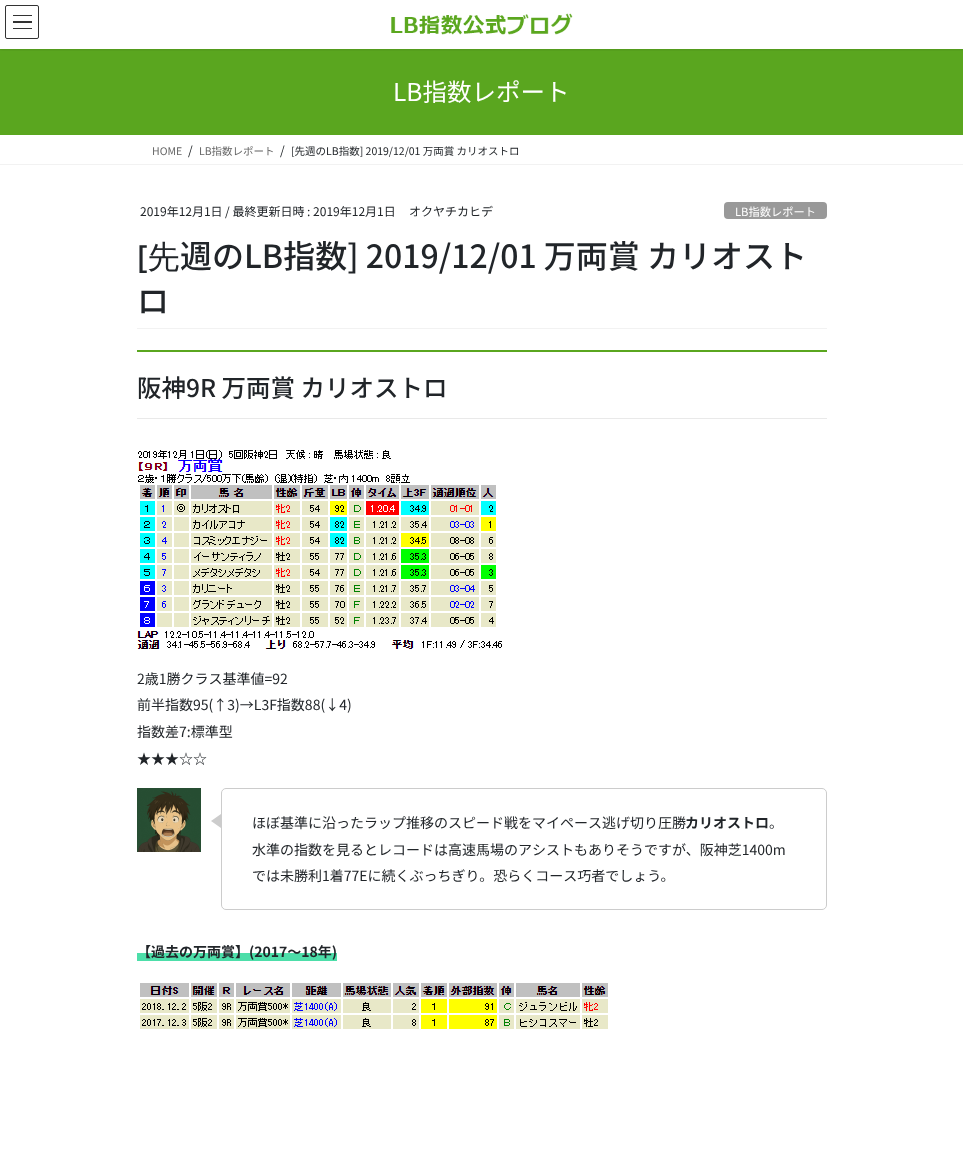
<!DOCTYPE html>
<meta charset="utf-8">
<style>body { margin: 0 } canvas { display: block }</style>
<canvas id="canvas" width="963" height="1166"></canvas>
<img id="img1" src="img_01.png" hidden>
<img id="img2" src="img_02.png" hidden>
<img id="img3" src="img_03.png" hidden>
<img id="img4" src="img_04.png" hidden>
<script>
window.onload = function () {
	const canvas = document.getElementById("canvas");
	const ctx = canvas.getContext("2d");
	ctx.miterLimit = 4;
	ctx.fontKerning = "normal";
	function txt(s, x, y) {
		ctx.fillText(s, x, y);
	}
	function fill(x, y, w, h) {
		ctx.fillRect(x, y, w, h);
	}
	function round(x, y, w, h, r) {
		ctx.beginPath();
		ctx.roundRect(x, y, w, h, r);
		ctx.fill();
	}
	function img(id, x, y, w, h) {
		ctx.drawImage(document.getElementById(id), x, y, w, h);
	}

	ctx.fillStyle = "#FFFFFF";
	fill(0, 0, 963, 1166);
	ctx.fillStyle = "#5AA61F";
	fill(0, 49, 963, 86);
	ctx.save();
	ctx.beginPath();
	ctx.rect(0, 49, 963, 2);
	ctx.clip();
	ctx.fillStyle = "rgba(0, 0, 0, 0.1)";
	ctx.filter = "blur(1.5px)";
	ctx.beginPath();
	ctx.rect(0, 1, 963, 49);
	ctx.fill();
	ctx.filter = "none";
	ctx.restore();
	img("img1", 391, 13, 182, 22);
	ctx.fillStyle = "#333333";
	fill(13, 15, 19, 1);
	fill(13, 21, 19, 2);
	fill(13, 28, 19, 1);
	ctx.beginPath();
	ctx.roundRect(5.5, 5.5, 33, 33, 1.5);
	ctx.strokeStyle = "#333333";
	ctx.stroke();
	ctx.fillStyle = "#F2F2F2";
	fill(0, 164, 963, 1);
	fill(137, 328, 690, 1);
	ctx.fillStyle = "#999999";
	round(724, 202, 103, 17, 4);
	ctx.fillStyle = "#5AA61F";
	fill(137, 350, 690, 2);
	ctx.fillStyle = "#E9E9E9";
	fill(137, 418, 690, 1);
	img("img2", 137, 450, 365, 199);
	img("img3", 137, 788, 64, 64);
	ctx.beginPath();
	ctx.roundRect(221.5, 788.5, 605, 121, 4.5);
	ctx.strokeStyle = "#CCCCCC";
	ctx.stroke();
	ctx.fillStyle = "#CCCCCC";
	ctx.beginPath();
	ctx.moveTo(221, 814);
	ctx.lineTo(221, 828);
	ctx.lineTo(211, 821);
	ctx.closePath();
	ctx.fill();
	ctx.fillStyle = "#4DDEA9";
	fill(137, 953, 200, 8);
	img("img4", 140, 983, 468, 46);
	ctx.font = "24.5px Noto Sans JP";
	ctx.fillStyle = "#FFFFFF";
	txt("LB指数レポート", 393, 101);
	ctx.font = "10.5px Noto Sans JP";
	ctx.fillStyle = "#666666";
	txt("HOME", 152, 155);
	ctx.font = "12px Noto Sans JP";
	ctx.fillStyle = "#212529";
	txt("/", 188, 155);
	ctx.font = "10.5px Noto Sans JP";
	ctx.fillStyle = "#666666";
	txt("LB指数レポート", 199, 155);
	ctx.font = "12px Noto Sans JP";
	ctx.fillStyle = "#212529";
	txt("/", 280, 155);
	ctx.font = "10.5px Noto Sans JP";
	txt("[先週のLB指数] 2019/12/01 万両賞 カリオストロ", 291, 155);
	ctx.font = "12px Noto Sans JP";
	txt("2019年12月1日", 140, 216);
	txt("/ 最終更新日時 : 2019年12月1日", 225, 216);
	txt("オクヤチカヒデ", 409, 216);
	ctx.font = "11.25px Noto Sans JP";
	ctx.fillStyle = "#FFFFFF";
	txt("LB指数レポート", 735, 216);
	ctx.font = "500 32px Noto Sans";
	ctx.fillStyle = "#212529";
	txt("[先", 137, 268);
	ctx.font = "500 32px Noto Sans JP";
	txt("週のLB指数] 2019/12/01 万両賞 カリオスト", 180, 268);
	txt("ロ", 137, 313);
	ctx.font = "500 24.5px Noto Sans JP";
	txt("阪神9R 万両賞 カリオストロ", 137, 397);
	ctx.font = "14px Noto Sans JP";
	txt("2歳1勝クラス基準値=92", 137, 684);
	txt("前半指数95(↑3)→L3F指数88(↓4)", 137, 710);
	txt("指数差7:標準型", 137, 737);
	txt("★★★☆☆", 137, 764);
	txt("ほぼ基準に沿ったラップ推移のスピード戦をマイペース逃げ切り圧勝", 252, 828);
	ctx.font = "bold 14px Noto Sans JP";
	txt("カリオストロ", 685, 828);
	ctx.font = "14px Noto Sans JP";
	txt("。", 769, 828);
	txt("水準の指数を見るとレコードは高速馬場のアシストもありそうですが、阪神芝1400m", 252, 855);
	txt("では未勝利1着77Eに続くぶっちぎり。恐らくコース巧者でしょう。", 252, 881);
	ctx.font = "bold 14px Noto Sans JP";
	txt("【過去の万両賞】(2017～18年)", 137, 957);
};
</script>
